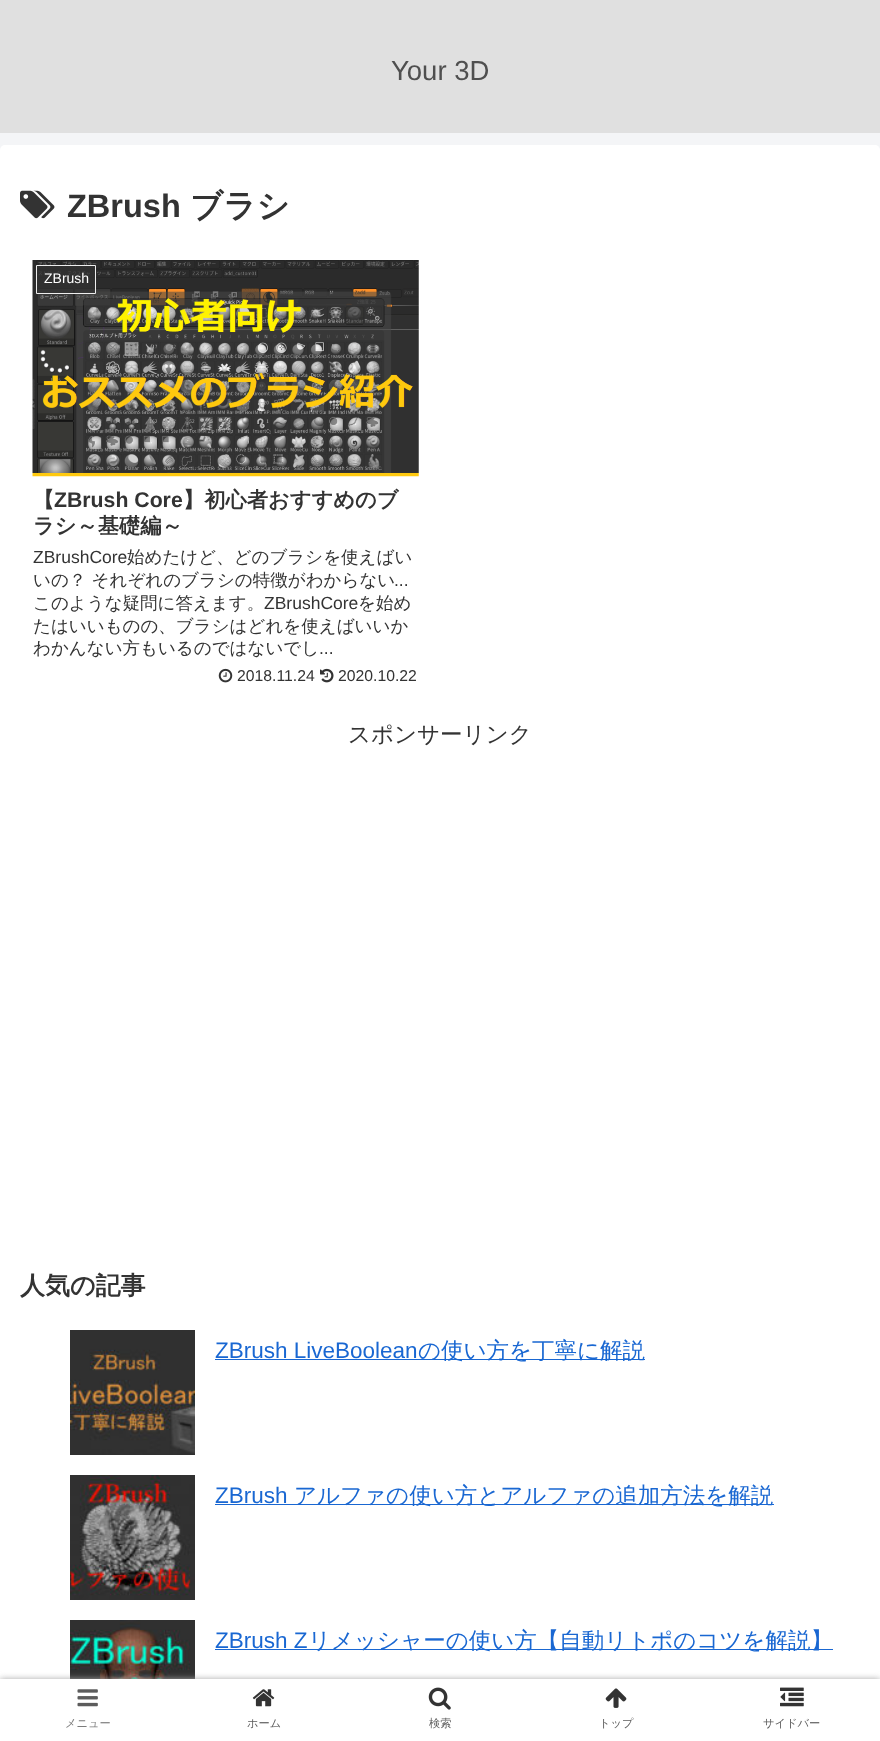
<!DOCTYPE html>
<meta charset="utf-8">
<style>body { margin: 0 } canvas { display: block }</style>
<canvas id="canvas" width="880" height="1741"></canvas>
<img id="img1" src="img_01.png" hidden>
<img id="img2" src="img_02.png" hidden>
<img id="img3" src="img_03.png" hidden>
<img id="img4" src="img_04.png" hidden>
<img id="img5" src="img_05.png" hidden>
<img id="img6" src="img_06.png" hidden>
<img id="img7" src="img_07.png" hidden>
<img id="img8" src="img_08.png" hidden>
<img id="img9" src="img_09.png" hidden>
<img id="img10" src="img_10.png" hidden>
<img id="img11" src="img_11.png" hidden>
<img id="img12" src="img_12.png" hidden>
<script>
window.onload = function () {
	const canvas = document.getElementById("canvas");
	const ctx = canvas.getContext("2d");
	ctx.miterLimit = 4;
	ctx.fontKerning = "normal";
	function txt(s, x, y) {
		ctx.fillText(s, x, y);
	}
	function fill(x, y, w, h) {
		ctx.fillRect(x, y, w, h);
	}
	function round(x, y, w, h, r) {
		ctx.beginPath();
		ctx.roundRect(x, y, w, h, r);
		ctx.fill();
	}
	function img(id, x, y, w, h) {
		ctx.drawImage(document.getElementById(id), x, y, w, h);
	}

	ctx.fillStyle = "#F4F5F7";
	fill(0, 0, 880, 1741);
	ctx.fillStyle = "#E0E0E0";
	fill(0, 0, 880, 133);
	ctx.fillStyle = "#FFFFFF";
	round(0, 145, 880, 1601, 5);
	img("img1", 20, 190, 35, 29);
	img("img2", 32, 260, 387, 217);
	ctx.fillStyle = "rgba(51, 51, 51, 0.7)";
	ctx.beginPath();
	ctx.rect(36.5, 265.5, 59, 28);
	ctx.fill();
	ctx.strokeStyle = "#EEEEEE";
	ctx.stroke();
	img("img3", 218, 668, 15, 15);
	img("img4", 320, 668, 14, 15);
	img("img5", 70, 1330, 125, 125);
	ctx.fillStyle = "#1967D2";
	fill(215, 1359, 430, 1);
	img("img6", 70, 1475, 125, 125);
	fill(215, 1504, 559, 1);
	img("img7", 70, 1620, 125, 59);
	fill(215, 1649, 618, 1);
	ctx.fillStyle = "#A9A9A9";
	ctx.filter = "blur(3px)";
	ctx.beginPath();
	ctx.rect(0, 1679, 880, 62);
	ctx.fill();
	ctx.filter = "none";
	ctx.fillStyle = "#FFFFFF";
	fill(0, 1679, 880, 62);
	img("img8", 77, 1689, 21, 18);
	img("img9", 252, 1689, 23, 18);
	img("img10", 428, 1687, 23, 23);
	img("img11", 605, 1688, 22, 20);
	img("img12", 780, 1687, 24, 20);
	ctx.font = "27.5px Liberation Sans";
	ctx.fillStyle = "#4F4F4F";
	txt("Your 3D", 391, 80);
	ctx.font = "bold 32.5px Liberation Sans";
	ctx.fillStyle = "#333333";
	txt("ZBrush", 67, 217);
	ctx.font = "bold 32.5px WenQuanYi Zen Hei";
	txt("ブラシ", 190, 217);
	ctx.font = "14px Liberation Sans";
	ctx.fillStyle = "#FFFFFF";
	txt("ZBrush", 44, 283);
	ctx.font = "bold 21.25px WenQuanYi Zen Hei";
	ctx.fillStyle = "#333333";
	txt("【", 33, 507);
	ctx.font = "bold 21.25px Liberation Sans";
	txt("ZBrush Core", 54, 507);
	ctx.font = "bold 21.25px WenQuanYi Zen Hei";
	txt("】初心者おすすめのブ", 183, 507);
	txt("ラシ～基礎編～", 33, 533);
	ctx.font = "17.5px Liberation Sans";
	txt("ZBrushCore", 33, 563);
	ctx.font = "500 17.5px WenQuanYi Zen Hei";
	txt("始めたけど、どのブラシを使えばい", 127, 563);
	txt("いの？ それぞれのブラシの特徴がわからない", 33, 586);
	ctx.font = "17.5px Liberation Sans";
	txt("...", 394, 586);
	ctx.font = "500 17.5px WenQuanYi Zen Hei";
	txt("このような疑問に答えます。", 33, 609);
	ctx.font = "17.5px Liberation Sans";
	txt("ZBrushCore", 264, 609);
	ctx.font = "500 17.5px WenQuanYi Zen Hei";
	txt("を始め", 358, 609);
	txt("たはいいものの、ブラシはどれを使えばいいか", 33, 632);
	txt("わかんない方もいるのではないでし", 33, 654);
	ctx.font = "17.5px Liberation Sans";
	txt("...", 319, 654);
	ctx.font = "15.75px Liberation Sans";
	txt("2018.11.24", 237, 681);
	txt("2020.10.22", 338, 681);
	ctx.font = "500 22.5px WenQuanYi Zen Hei";
	txt("スポンサーリンク", 348, 742);
	ctx.font = "bold 25px WenQuanYi Zen Hei";
	txt("人気の記事", 20, 1294);
	ctx.font = "22.5px Liberation Sans";
	ctx.fillStyle = "#1967D2";
	txt("ZBrush LiveBoolean", 215, 1358);
	ctx.font = "500 22.5px WenQuanYi Zen Hei";
	txt("の使い方を丁寧に解説", 418, 1358);
	ctx.font = "22.5px Liberation Sans";
	txt("ZBrush", 215, 1503);
	ctx.font = "500 22.5px WenQuanYi Zen Hei";
	txt("アルファの使い方とアルファの追加方法を解説", 294, 1503);
	ctx.font = "22.5px Liberation Sans";
	txt("ZBrush Z", 215, 1648);
	ctx.font = "500 22.5px WenQuanYi Zen Hei";
	txt("リメッシャーの使い方【自動リトポのコツを解説】", 308, 1648);
	ctx.font = "500 11.25px WenQuanYi Zen Hei";
	ctx.fillStyle = "#7C7C7C";
	txt("メニュー", 65, 1727);
	ctx.fillStyle = "#5C5C5C";
	txt("ホーム", 247, 1727);
	txt("検索", 429, 1727);
	txt("トップ", 599, 1727);
	txt("サイドバー", 763, 1727);
};
</script>
